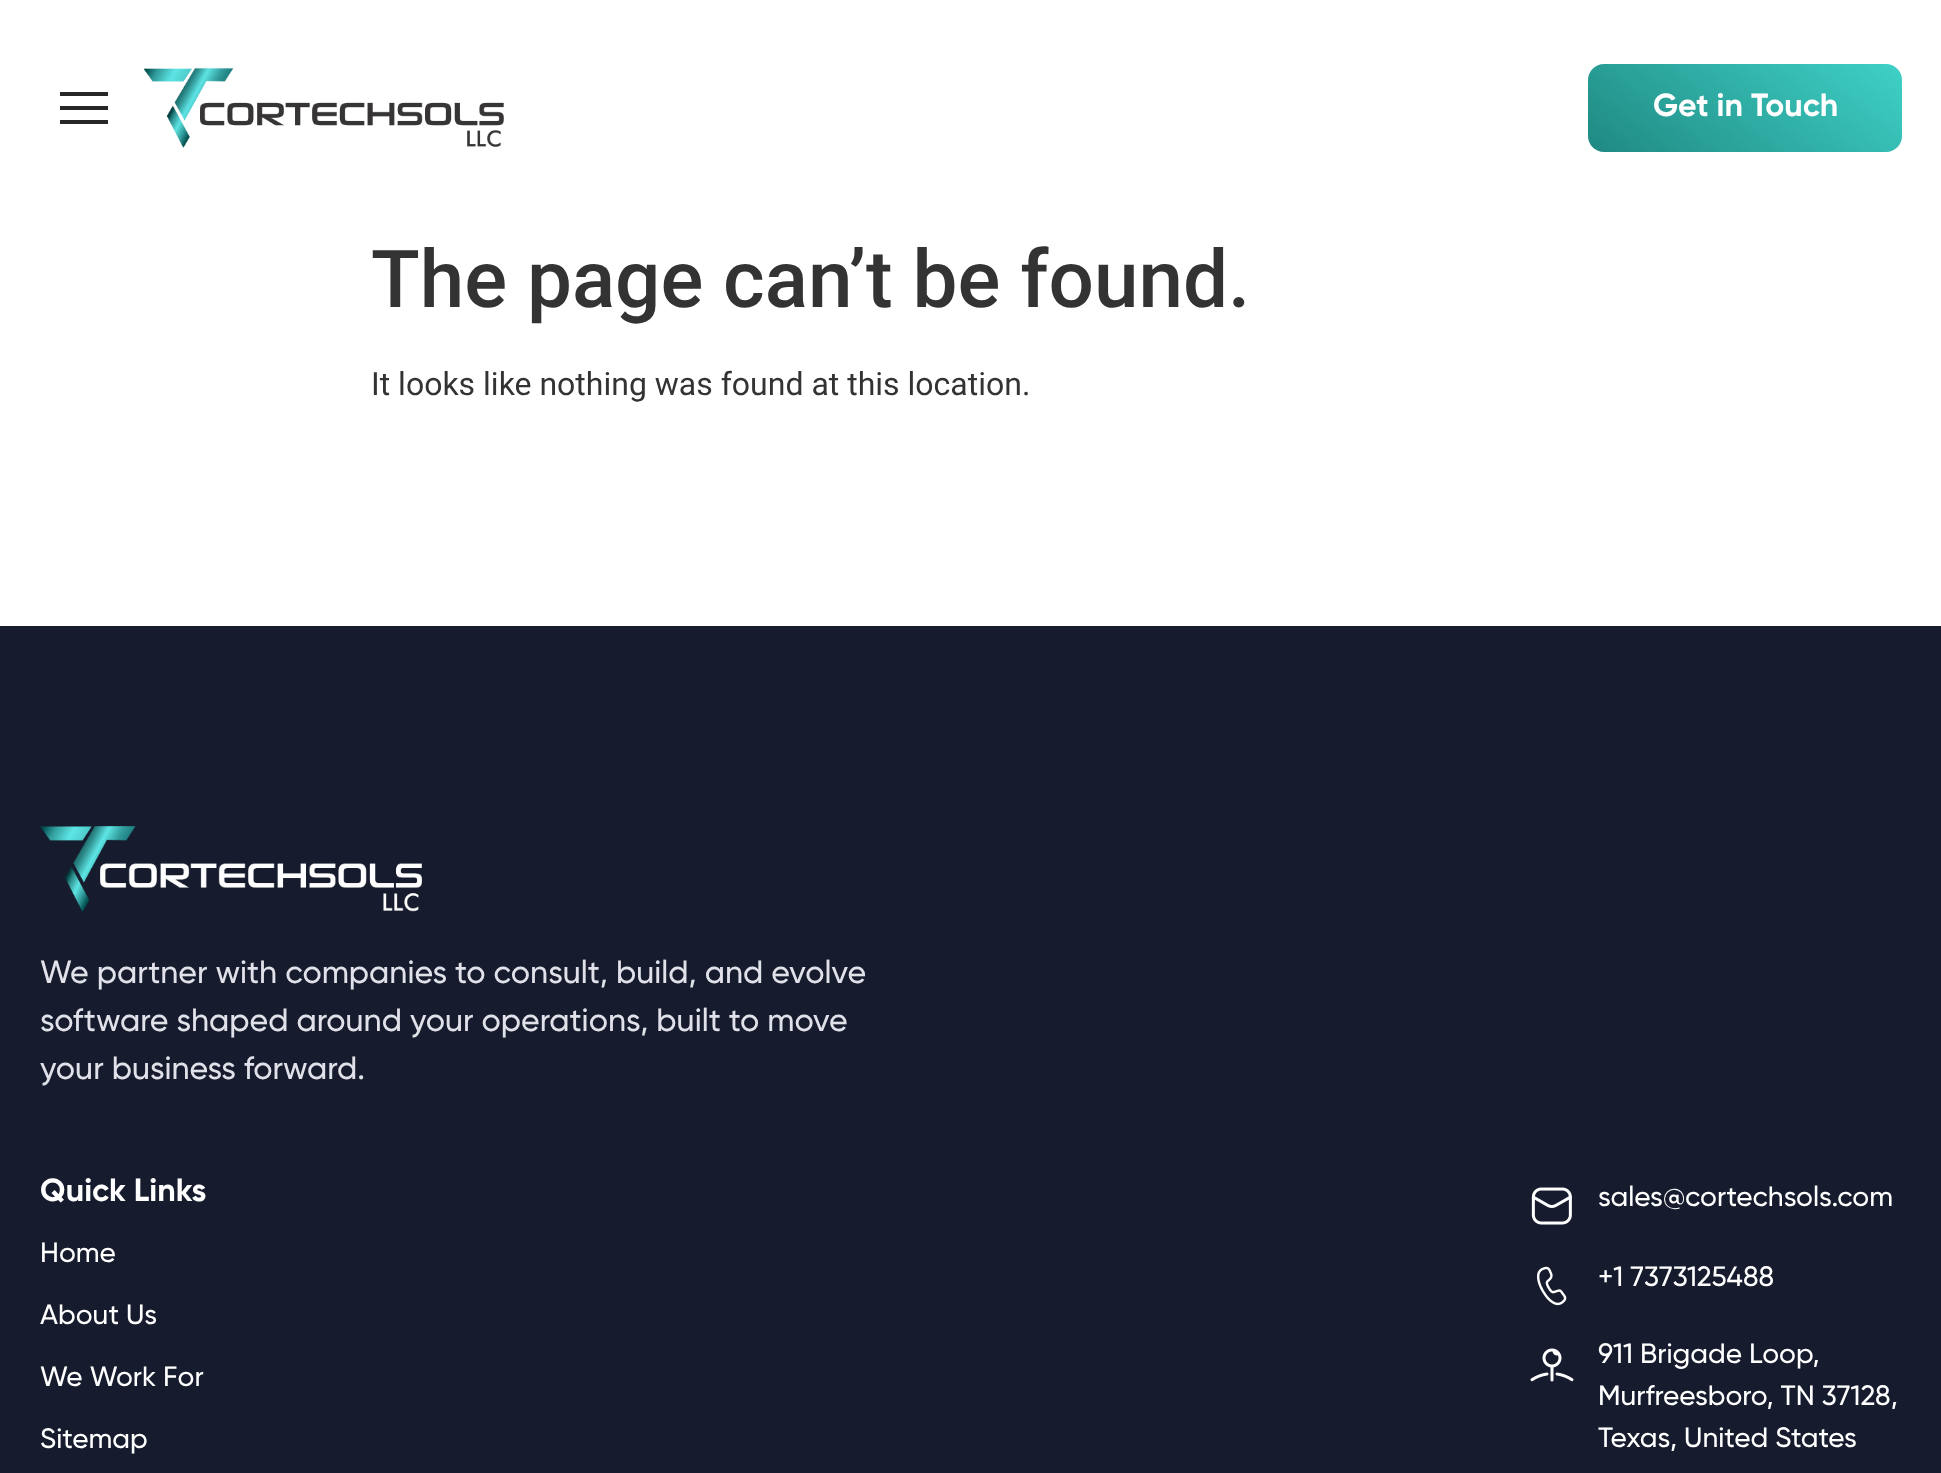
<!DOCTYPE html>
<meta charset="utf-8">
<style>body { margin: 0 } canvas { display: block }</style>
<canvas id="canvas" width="1941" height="1473"></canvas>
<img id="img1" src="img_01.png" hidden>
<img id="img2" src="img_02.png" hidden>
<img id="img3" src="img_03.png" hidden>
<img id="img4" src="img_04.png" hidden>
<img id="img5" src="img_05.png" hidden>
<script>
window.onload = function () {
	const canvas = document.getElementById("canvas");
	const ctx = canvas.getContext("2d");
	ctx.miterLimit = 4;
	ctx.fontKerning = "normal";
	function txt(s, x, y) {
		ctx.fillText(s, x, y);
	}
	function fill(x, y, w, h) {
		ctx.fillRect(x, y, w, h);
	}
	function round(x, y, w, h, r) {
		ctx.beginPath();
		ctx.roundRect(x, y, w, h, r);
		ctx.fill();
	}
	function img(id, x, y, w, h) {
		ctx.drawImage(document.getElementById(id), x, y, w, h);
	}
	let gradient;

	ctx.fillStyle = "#FFFFFF";
	fill(0, 0, 1941, 1473);
	ctx.fillStyle = "#272727";
	fill(60, 106, 48, 4);
	fill(60, 92, 48, 4);
	fill(60, 120, 48, 4);
	img("img1", 144, 68, 360, 80);
	gradient = ctx.createLinearGradient(1823, 4.5, 1667, 212);
	gradient.addColorStop(0, "#3FD1C7");
	gradient.addColorStop(1, "#1F8982");
	ctx.fillStyle = gradient;
	round(1588, 64, 314, 88, 16);
	ctx.fillStyle = "#161C2D";
	fill(0, 626, 1941, 847);
	img("img2", 40, 826, 382, 86);
	img("img3", 1531, 1187, 41, 38);
	img("img4", 1537, 1266, 30, 40);
	img("img5", 1530, 1348, 44, 34);
	ctx.font = "bold 32px Gilroy";
	ctx.fillStyle = "#FFFFFF";
	txt("Get in Touch", 1653, 116);
	ctx.font = "500 80px Roboto";
	ctx.fillStyle = "#333333";
	txt("The page can’t be found.", 371, 307);
	ctx.font = "32px Roboto";
	txt("It looks like nothing was found at this location.", 371, 395);
	ctx.font = "500 32px Gilroy";
	ctx.fillStyle = "#E0E1E9";
	txt("We partner with companies to consult, build, and evolve", 40, 983);
	txt("software shaped around your operations, built to move", 40, 1031);
	txt("your business forward.", 40, 1079);
	ctx.font = "bold 32px Gilroy";
	ctx.fillStyle = "#FFFFFF";
	txt("Quick Links", 40, 1201);
	ctx.font = "500 28px Gilroy";
	txt("Home", 40, 1262);
	txt("About Us", 40, 1324);
	txt("We Work For", 40, 1386);
	txt("Sitemap", 40, 1448);
	txt("sales@cortechsols.com", 1598, 1206);
	txt("+1 7373125488", 1598, 1286);
	txt("911 Brigade Loop,", 1598, 1363);
	txt("Murfreesboro, TN 37128,", 1598, 1405);
	txt("Texas, United States", 1598, 1447);
};
</script>
